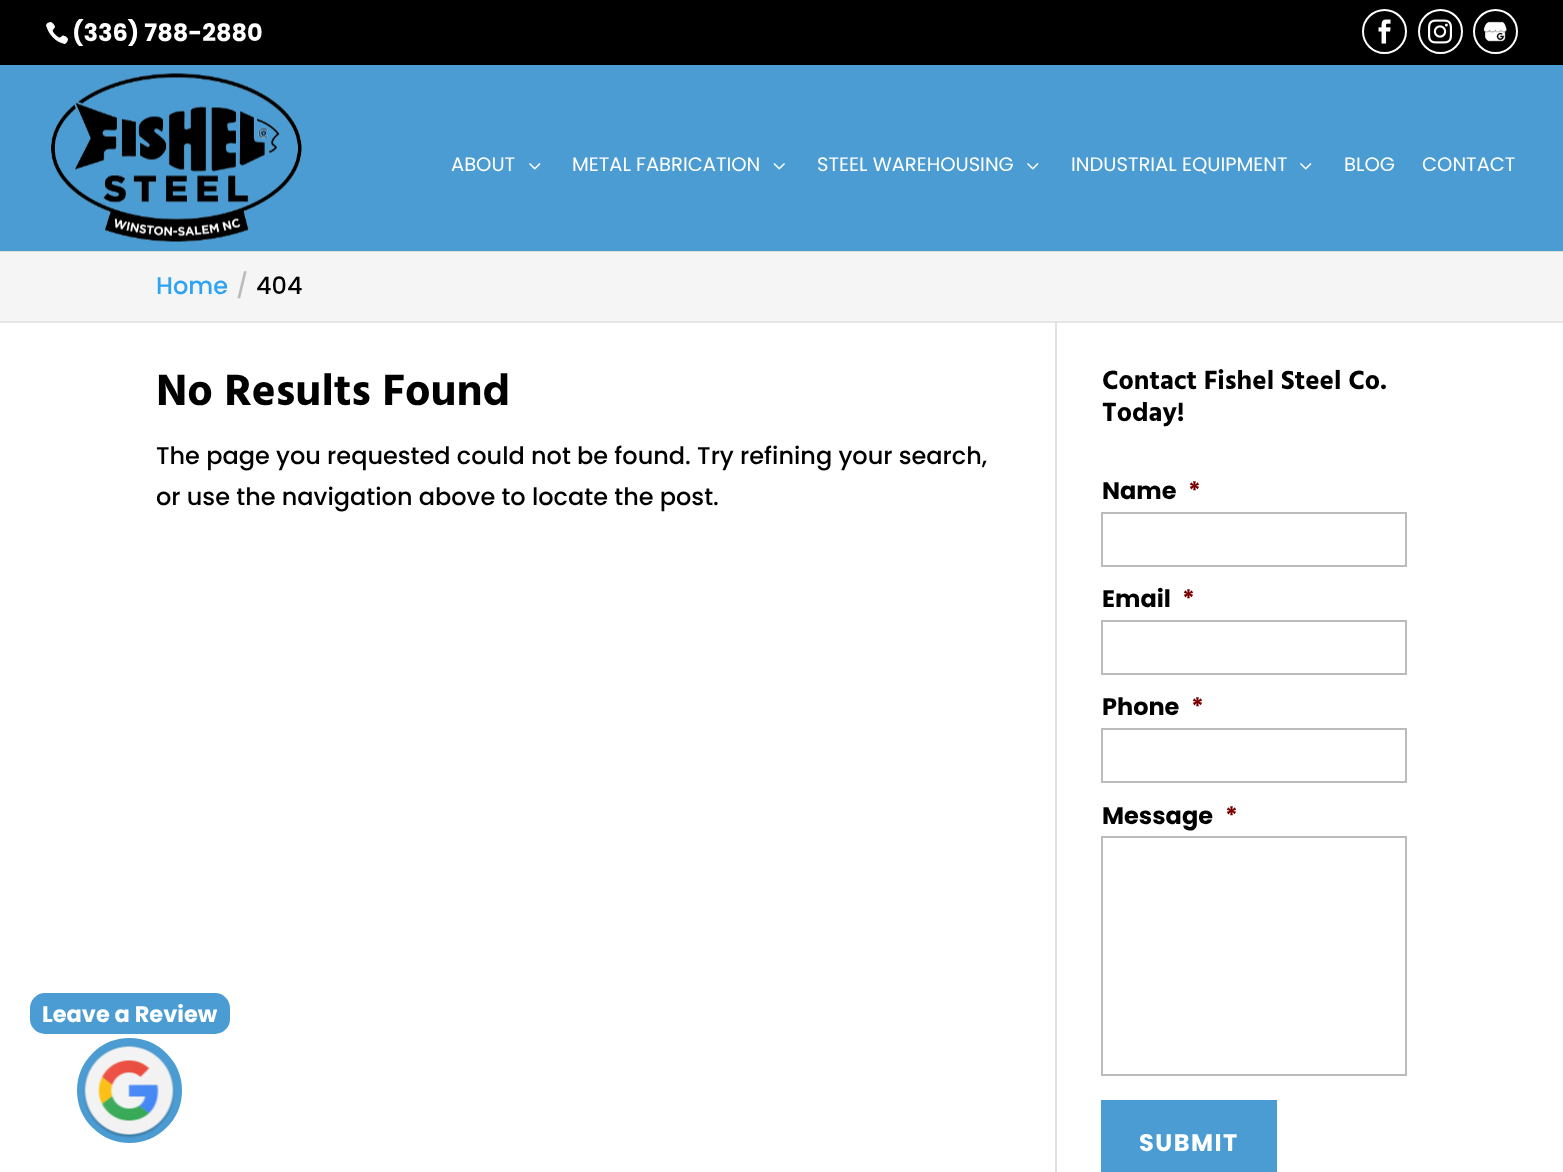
<!DOCTYPE html>
<meta charset="utf-8">
<style>body { margin: 0 } canvas { display: block }</style>
<canvas id="canvas" width="1563" height="1172"></canvas>
<img id="img1" src="img_01.png" hidden>
<img id="img2" src="img_02.png" hidden>
<img id="img3" src="img_03.png" hidden>
<img id="img4" src="img_04.png" hidden>
<img id="img5" src="img_05.png" hidden>
<img id="img6" src="img_06.png" hidden>
<img id="img7" src="img_07.png" hidden>
<img id="img8" src="img_08.png" hidden>
<script>
window.onload = function () {
	const canvas = document.getElementById("canvas");
	const ctx = canvas.getContext("2d");
	ctx.miterLimit = 4;
	ctx.fontKerning = "normal";
	function txt(s, x, y) {
		ctx.fillText(s, x, y);
	}
	function fill(x, y, w, h) {
		ctx.fillRect(x, y, w, h);
	}
	function img(id, x, y, w, h) {
		ctx.drawImage(document.getElementById(id), x, y, w, h);
	}

	ctx.fillStyle = "#FFFFFF";
	fill(0, 0, 1563, 1172);
	ctx.fillStyle = "#000000";
	fill(0, 0, 1563, 65);
	img("img1", 46, 22, 22, 22);
	ctx.beginPath();
	ctx.arc(1384.5, 31.5, 21.5, 0, Math.PI * 2);
	ctx.strokeStyle = "#FFFFFF";
	ctx.lineWidth = 2;
	ctx.stroke();
	img("img2", 1378, 19, 13, 25);
	ctx.beginPath();
	ctx.arc(1440.5, 31.5, 21.5, 0, Math.PI * 2);
	ctx.stroke();
	img("img3", 1428, 19, 24, 25);
	ctx.beginPath();
	ctx.arc(1495.5, 31.5, 21.5, 0, Math.PI * 2);
	ctx.stroke();
	img("img4", 1483, 21, 24, 21);
	ctx.fillStyle = "#4B9CD3";
	fill(0, 65, 1563, 186);
	img("img5", 51, 73, 251, 169);
	img("img6", 529, 163, 12, 7);
	img("img7", 773, 163, 12, 7);
	img("img6", 1027, 163, 12, 7);
	img("img6", 1300, 163, 12, 7);
	ctx.beginPath();
	ctx.roundRect(32.5, 995.5, 195, 36, 12.5);
	ctx.fill();
	ctx.strokeStyle = "#4B9CD3";
	ctx.lineWidth = 5;
	ctx.stroke();
	ctx.beginPath();
	ctx.arc(129.5, 1090.5, 50, 0, Math.PI * 2);
	ctx.fill();
	ctx.stroke();
	img("img8", 83, 1046, 92, 92);
	ctx.fillStyle = "#E6E6E6";
	fill(0, 321, 1563, 2);
	ctx.fillStyle = "#F5F5F5";
	fill(0, 252, 1563, 69);
	ctx.fillStyle = "#DDDDDD";
	fill(0, 251, 1563, 1);
	ctx.fillStyle = "#E2E2E2";
	fill(1055, 321, 2, 851);
	ctx.strokeStyle = "#BBBBBB";
	ctx.lineWidth = 2;
	ctx.strokeRect(1102, 513, 304, 53);
	ctx.strokeRect(1102, 621, 304, 53);
	ctx.strokeRect(1102, 729, 304, 53);
	ctx.strokeRect(1102, 837, 304, 238);
	ctx.fillStyle = "#4B9CD3";
	fill(1101, 1100, 176, 72);
	ctx.font = "bold 24px Poppins";
	ctx.fillStyle = "#FFFFFF";
	txt("(336) 788-2880", 72, 41);
	ctx.font = "19.5px Poppins";
	txt("ABOUT", 451, 171);
	txt("METAL FABRICATION", 572, 171);
	txt("STEEL WAREHOUSING", 817, 171);
	txt("INDUSTRIAL EQUIPMENT", 1071, 171);
	txt("BLOG", 1344, 171);
	txt("CONTACT", 1422, 171);
	ctx.font = "bold 22.5px Poppins";
	txt("Leave a Review", 42, 1022);
	ctx.font = "500 24px Poppins";
	ctx.fillStyle = "#2EA3F2";
	txt("Home", 156, 294);
	ctx.fillStyle = "#BBBBBB";
	txt("/", 236, 294);
	ctx.fillStyle = "#000000";
	txt("404", 256, 294);
	ctx.font = "bold 45px Hind";
	txt("No Results Found", 156, 405);
	ctx.font = "500 24px Poppins";
	txt("The page you requested could not be found. Try refining your search,", 156, 464);
	txt("or use the navigation above to locate the post.", 156, 505);
	ctx.font = "bold 27px Hind";
	txt("Contact Fishel Steel Co.", 1102, 389);
	txt("Today!", 1102, 421);
	ctx.font = "bold 24px Poppins";
	txt("Name", 1102, 499);
	ctx.fillStyle = "#790000";
	txt("*", 1188, 499);
	ctx.fillStyle = "#000000";
	txt("Email", 1102, 607);
	ctx.fillStyle = "#790000";
	txt("*", 1182, 607);
	ctx.fillStyle = "#000000";
	txt("Phone", 1102, 715);
	ctx.fillStyle = "#790000";
	txt("*", 1191, 715);
	ctx.fillStyle = "#000000";
	txt("Message", 1102, 824);
	ctx.fillStyle = "#790000";
	txt("*", 1225, 824);
	ctx.letterSpacing = "1.5px";
	ctx.fillStyle = "#FFFFFF";
	txt("SUBMIT", 1139, 1151);
};
</script>
